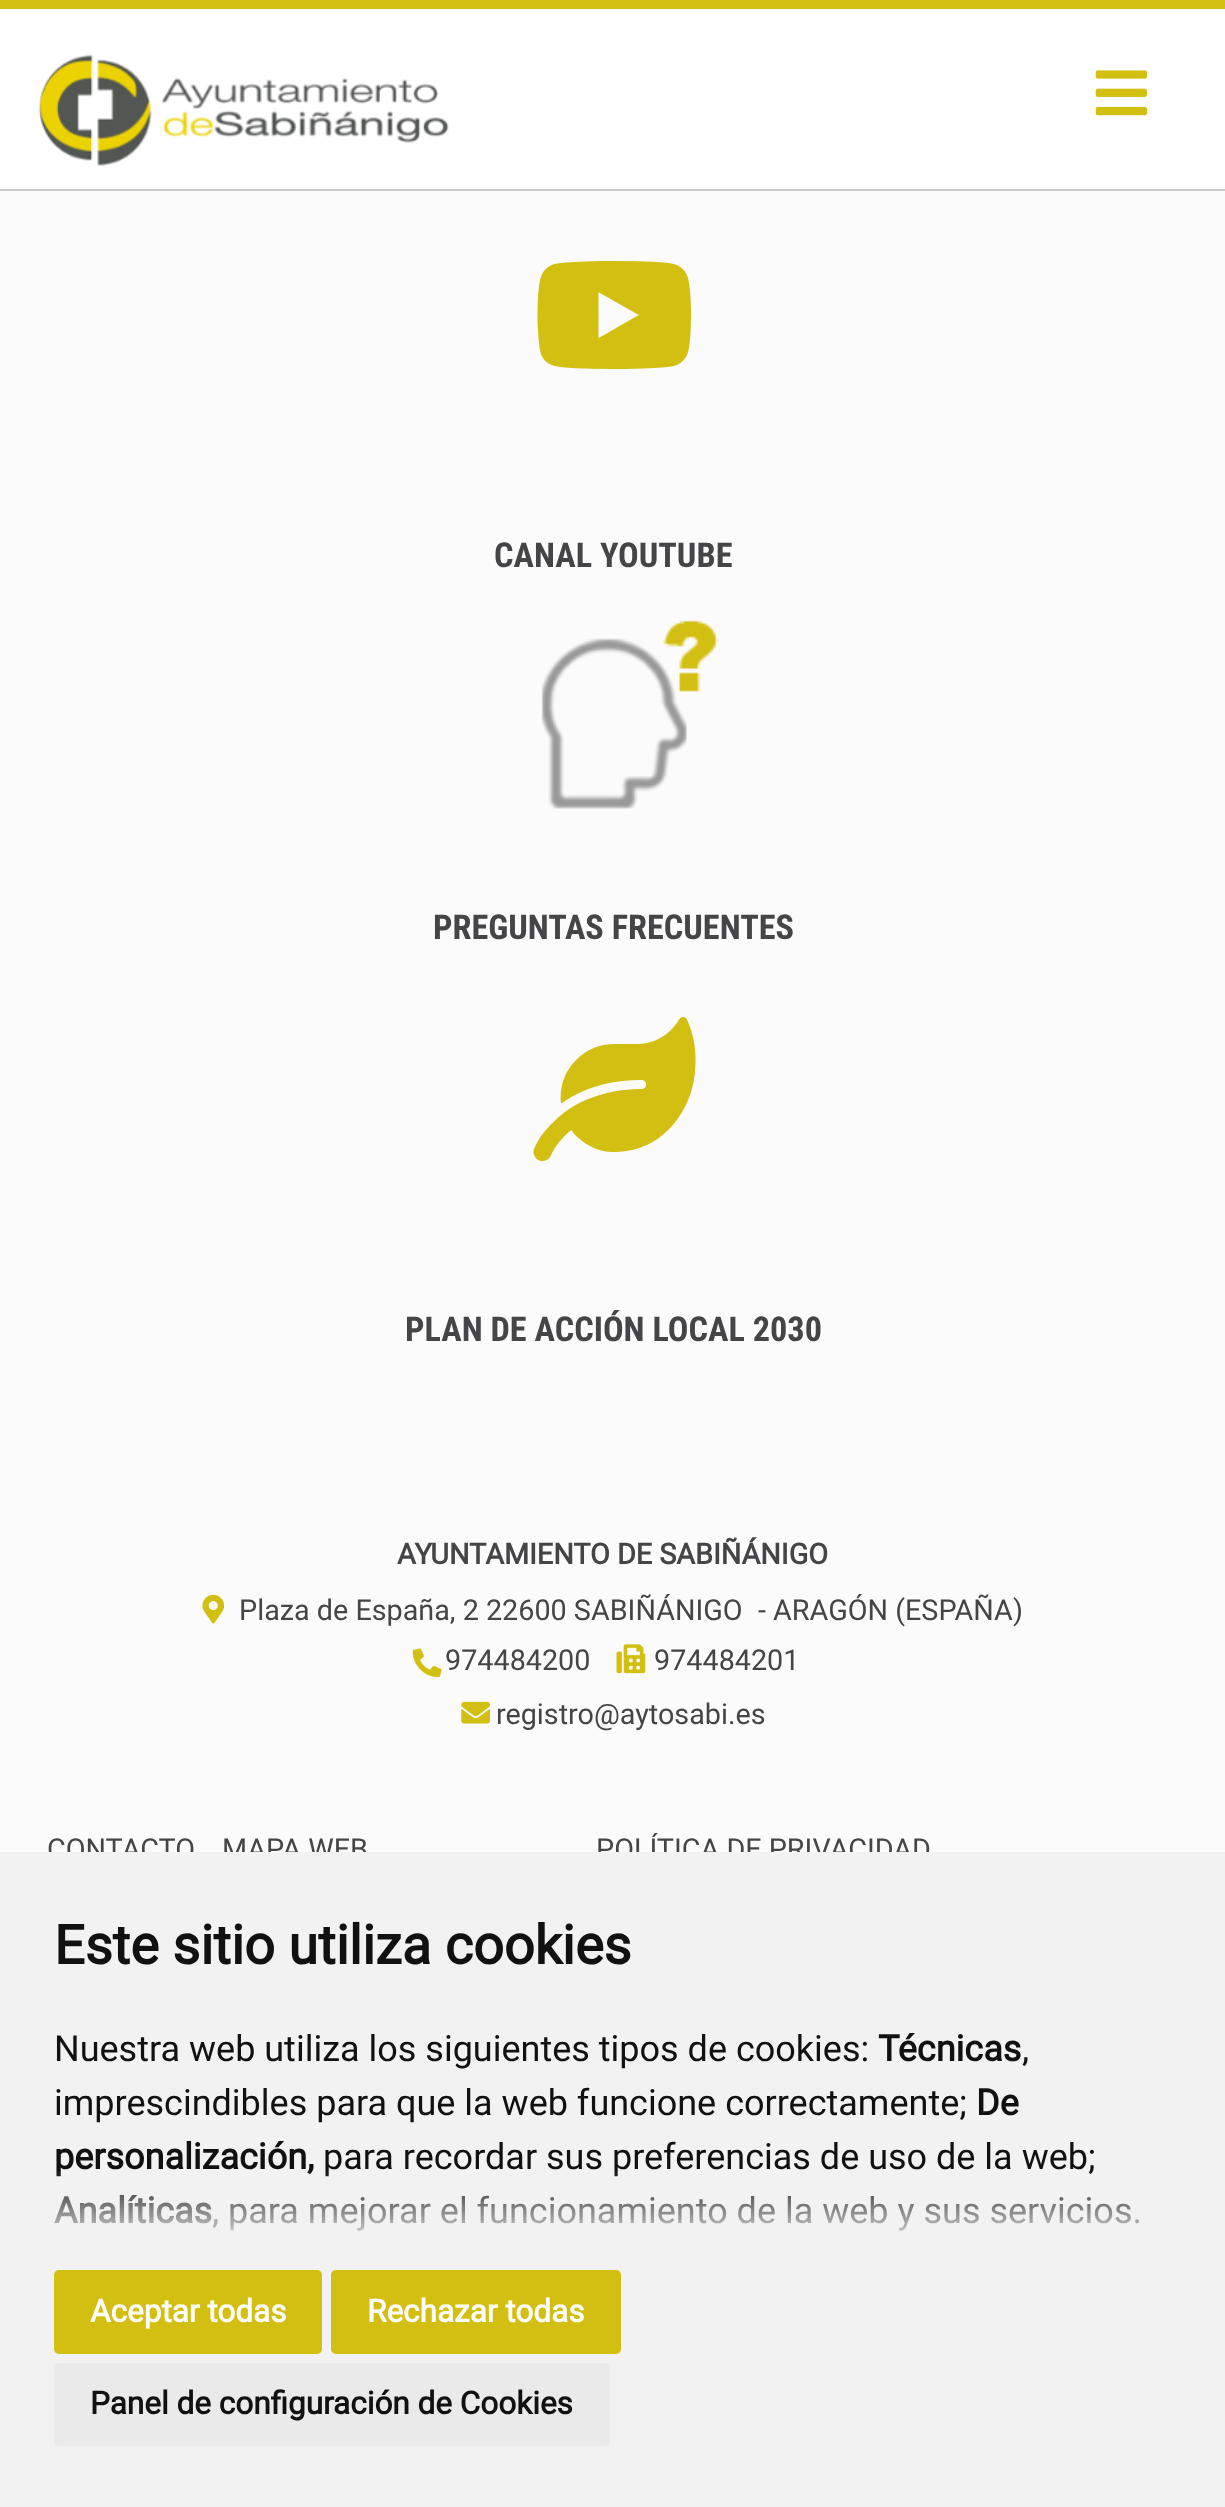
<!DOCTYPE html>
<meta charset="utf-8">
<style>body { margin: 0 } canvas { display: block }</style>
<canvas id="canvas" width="1225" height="2507"></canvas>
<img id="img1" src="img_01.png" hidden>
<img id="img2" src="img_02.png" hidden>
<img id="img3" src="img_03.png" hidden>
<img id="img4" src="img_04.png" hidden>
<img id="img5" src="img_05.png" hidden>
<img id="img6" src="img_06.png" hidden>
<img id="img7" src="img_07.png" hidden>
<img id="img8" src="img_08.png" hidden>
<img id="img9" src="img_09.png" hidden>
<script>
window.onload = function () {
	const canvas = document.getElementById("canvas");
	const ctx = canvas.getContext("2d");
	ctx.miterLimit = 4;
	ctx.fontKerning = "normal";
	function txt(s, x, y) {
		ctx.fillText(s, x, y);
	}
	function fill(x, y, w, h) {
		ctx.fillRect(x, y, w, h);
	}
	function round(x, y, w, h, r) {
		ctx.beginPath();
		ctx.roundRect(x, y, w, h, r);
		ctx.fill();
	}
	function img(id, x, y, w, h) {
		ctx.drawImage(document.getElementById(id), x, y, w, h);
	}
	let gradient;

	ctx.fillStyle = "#FBFBFB";
	fill(0, 0, 1225, 2507);
	ctx.fillStyle = "#FFFFFF";
	fill(0, 9, 1225, 180);
	ctx.fillStyle = "#D3BF11";
	fill(0, 0, 1225, 9);
	ctx.fillStyle = "#CACACA";
	fill(0, 189, 1225, 2);
	img("img1", 38, 54, 411, 112);
	img("img2", 1095, 70, 52, 46);
	img("img3", 537, 261, 155, 108);
	img("img4", 541, 620, 178, 189);
	img("img5", 533, 1017, 163, 145);
	img("img6", 202, 1594, 23, 30);
	img("img7", 412, 1648, 30, 30);
	img("img8", 616, 1644, 30, 30);
	img("img9", 461, 1701, 30, 23);
	ctx.font = "bold 34.25px Roboto Condensed";
	ctx.fillStyle = "#454548";
	txt("CANAL YOUTUBE", 494, 567);
	txt("PREGUNTAS FRECUENTES", 433, 939);
	txt("PLAN DE ACCIÓN LOCAL 2030", 405, 1341);
	ctx.font = "bold 28.75px Roboto";
	txt("AYUNTAMIENTO DE SABIÑÁNIGO", 397, 1564);
	ctx.font = "28.75px Roboto";
	txt("Plaza de España, 2 22600 SABIÑÁNIGO", 239, 1620);
	txt("- ARAGÓN (ESPAÑA)", 758, 1620);
	txt("974484200", 445, 1670);
	txt("974484201", 654, 1670);
	txt("registro@aytosabi.es", 496, 1724);
	txt("CONTACTO", 47, 1859);
	txt("MAPA WEB", 222, 1859);
	txt("POLÍTICA DE PRIVACIDAD", 596, 1859);
	ctx.fillStyle = "#F2F2F2";
	fill(0, 1852, 1225, 655);
	ctx.font = "bold 54px Roboto";
	ctx.fillStyle = "#111111";
	txt("Este sitio utiliza cookies", 54, 1964);
	ctx.font = "36px Roboto";
	txt("Nuestra web utiliza los siguientes tipos de cookies:", 54, 2061);
	ctx.font = "bold 36px Roboto";
	txt("Técnicas", 878, 2061);
	ctx.font = "36px Roboto";
	txt(",", 1022, 2061);
	txt("imprescindibles para que la web funcione correctamente;", 54, 2115);
	ctx.font = "bold 36px Roboto";
	txt("De", 976, 2115);
	txt("personalización,", 54, 2169);
	ctx.font = "36px Roboto";
	txt("para recordar sus preferencias de uso de la web;", 323, 2169);
	ctx.font = "bold 36px Roboto";
	txt("Analíticas", 54, 2223);
	ctx.font = "36px Roboto";
	txt(", para mejorar el funcionamiento de la web y sus servicios.", 212, 2223);
	gradient = ctx.createLinearGradient(613, 2169, 613, 2248);
	gradient.addColorStop(0, "rgba(242, 242, 242, 0)");
	gradient.addColorStop(1, "#F2F2F2");
	ctx.fillStyle = gradient;
	fill(54, 2171, 1086, 60);
	ctx.fillStyle = "#D3BF11";
	round(54, 2270, 268, 84, 5);
	ctx.font = "bold 31.5px Roboto";
	ctx.fillStyle = "#FFFFFF";
	txt("Aceptar todas", 90, 2322);
	ctx.fillStyle = "#D3BF11";
	round(331, 2270, 290, 84, 5);
	ctx.fillStyle = "#FFFFFF";
	txt("Rechazar todas", 367, 2322);
	ctx.fillStyle = "#EAEAEA";
	round(54, 2363, 556, 83, 5);
	ctx.fillStyle = "#111111";
	txt("Panel de configuración de Cookies", 90, 2414);
};
</script>
